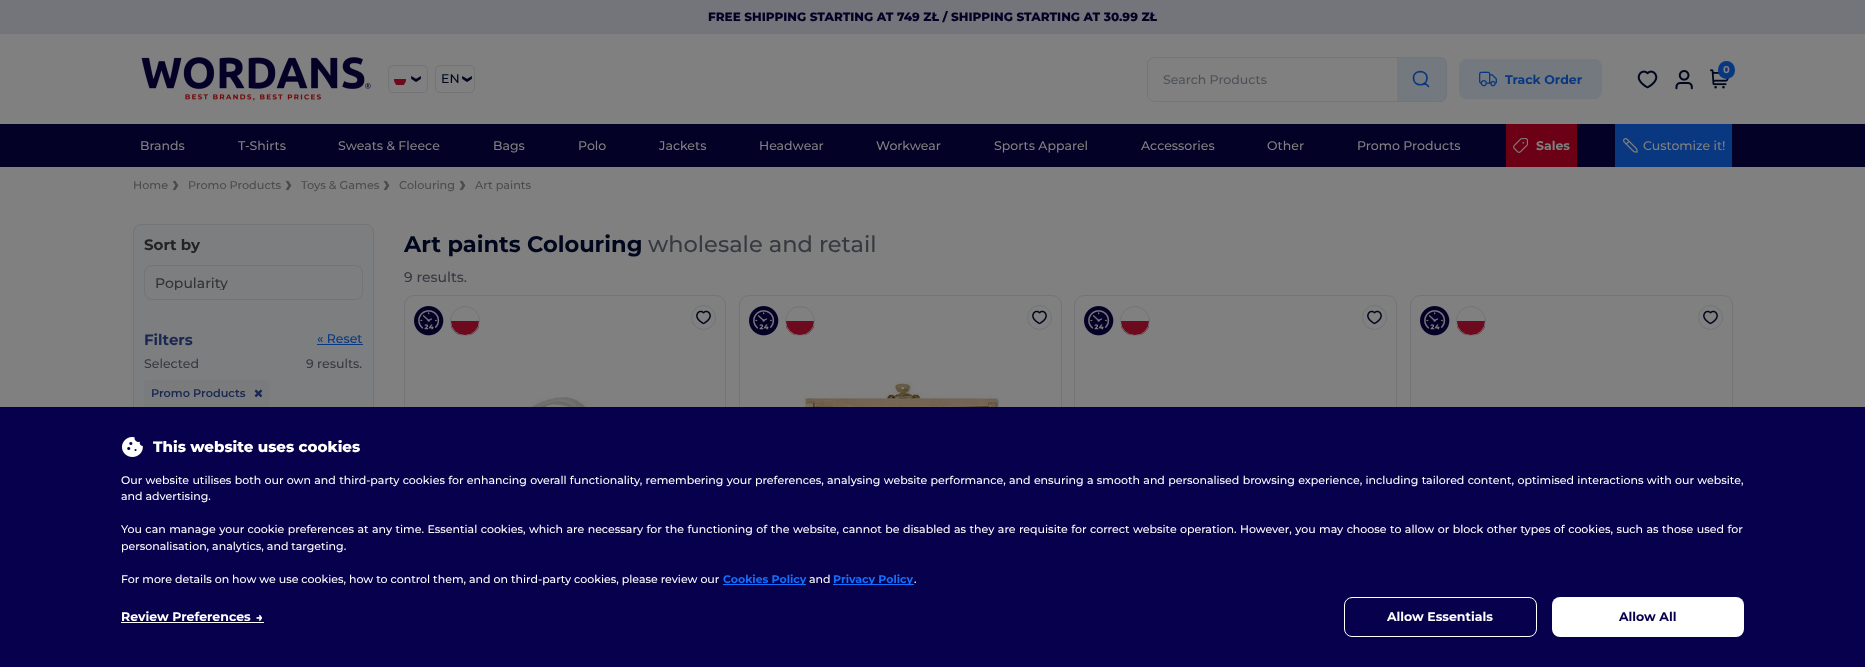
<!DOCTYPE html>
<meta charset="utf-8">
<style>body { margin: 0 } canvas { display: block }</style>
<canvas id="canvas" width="1865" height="667"></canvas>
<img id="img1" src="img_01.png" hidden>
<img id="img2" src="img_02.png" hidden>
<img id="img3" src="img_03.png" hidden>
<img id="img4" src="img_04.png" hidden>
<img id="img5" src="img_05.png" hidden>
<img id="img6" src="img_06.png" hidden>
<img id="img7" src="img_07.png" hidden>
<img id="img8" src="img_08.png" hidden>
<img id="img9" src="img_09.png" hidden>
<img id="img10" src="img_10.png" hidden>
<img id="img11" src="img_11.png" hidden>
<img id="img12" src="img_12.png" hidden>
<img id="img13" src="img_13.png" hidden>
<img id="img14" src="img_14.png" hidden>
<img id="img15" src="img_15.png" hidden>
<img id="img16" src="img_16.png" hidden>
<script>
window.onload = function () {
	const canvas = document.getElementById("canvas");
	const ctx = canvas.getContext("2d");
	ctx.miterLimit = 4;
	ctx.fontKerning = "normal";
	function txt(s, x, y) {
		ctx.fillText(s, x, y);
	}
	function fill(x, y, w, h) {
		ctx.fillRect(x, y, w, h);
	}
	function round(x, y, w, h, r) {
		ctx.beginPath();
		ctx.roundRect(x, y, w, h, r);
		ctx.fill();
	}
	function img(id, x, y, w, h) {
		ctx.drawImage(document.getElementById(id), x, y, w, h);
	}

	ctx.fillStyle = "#808080";
	fill(0, 0, 1865, 667);
	ctx.fillStyle = "#73757A";
	fill(0, 0, 1865, 34);
	img("img1", 141, 57, 230, 44);
	ctx.beginPath();
	ctx.roundRect(388.5, 65.5, 39, 27, 4.5);
	ctx.strokeStyle = "#737476";
	ctx.stroke();
	ctx.save();
	ctx.beginPath();
	ctx.roundRect(394, 72, 12, 14, 6);
	ctx.clip();
	ctx.fillStyle = "#6E0A1E";
	fill(394, 79, 12, 6);
	ctx.restore();
	img("img2", 411, 76, 10, 6);
	ctx.beginPath();
	ctx.roundRect(435.5, 65.5, 39, 27, 4.5);
	ctx.stroke();
	img("img2", 462, 76, 10, 6);
	img("img3", 1637, 70, 21, 19);
	img("img4", 1675, 70, 18, 20);
	img("img5", 1710, 69, 19, 20);
	ctx.fillStyle = "#093880";
	round(1718, 61, 17, 18, 8.5);
	ctx.beginPath();
	ctx.roundRect(1147.5, 57.5, 299, 44, 7.5);
	ctx.strokeStyle = "#73757A";
	ctx.stroke();
	ctx.fillStyle = "#747980";
	ctx.beginPath();
	ctx.roundRect(1397, 58, 49, 43, [0, 7, 7, 0]);
	ctx.fill();
	ctx.fillStyle = "#73757A";
	ctx.beginPath();
	ctx.moveTo(1397, 57);
	ctx.lineTo(1440, 57);
	ctx.bezierCurveTo(1444, 57, 1447, 60, 1447, 64);
	ctx.lineTo(1447, 94);
	ctx.bezierCurveTo(1447, 99, 1444, 102, 1440, 102);
	ctx.lineTo(1397, 102);
	ctx.closePath();
	ctx.moveTo(1397, 58);
	ctx.lineTo(1440, 58);
	ctx.bezierCurveTo(1443, 58, 1446, 61, 1446, 64);
	ctx.lineTo(1446, 94);
	ctx.bezierCurveTo(1446, 98, 1443, 101, 1440, 101);
	ctx.lineTo(1397, 101);
	ctx.closePath();
	ctx.fill("evenodd");
	ctx.beginPath();
	ctx.moveTo(1428.5, 86.5);
	ctx.lineTo(1425, 83);
	ctx.moveTo(1427, 78);
	ctx.bezierCurveTo(1427, 87, 1413.5, 87, 1413.5, 78);
	ctx.bezierCurveTo(1413.5, 69.5, 1427, 69.5, 1427, 78);
	ctx.closePath();
	ctx.strokeStyle = "#093880";
	ctx.lineWidth = 1.7;
	ctx.lineCap = "round";
	ctx.lineJoin = "round";
	ctx.stroke();
	ctx.fillStyle = "#747980";
	round(1459, 59, 143, 40, 8);
	img("img6", 1479, 71, 18, 16);
	ctx.fillStyle = "#040127";
	fill(0, 124, 1865, 43);
	ctx.fillStyle = "#6C0014";
	fill(1506, 124, 71, 43);
	img("img7", 1513, 138, 15, 15);
	ctx.fillStyle = "#093880";
	fill(1615, 124, 117, 43);
	img("img8", 1623, 138, 15, 15);
	img("img9", 172, 180, 7, 11);
	img("img9", 285, 180, 7, 11);
	img("img9", 383, 180, 7, 11);
	img("img9", 459, 180, 7, 11);
	ctx.fillStyle = "#7D7E7F";
	ctx.beginPath();
	ctx.roundRect(133.5, 224.5, 240, 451, 7.5);
	ctx.fill();
	ctx.strokeStyle = "#737476";
	ctx.lineWidth = 1;
	ctx.lineJoin = "miter";
	ctx.stroke();
	ctx.beginPath();
	ctx.roundRect(144.5, 265.5, 218, 34, 7.5);
	ctx.stroke();
	ctx.fillStyle = "#093880";
	fill(317, 344, 46, 1);
	ctx.fillStyle = "#7A7B7D";
	round(144, 380, 126, 28, 5);
	img("img10", 254, 389, 9, 9);
	ctx.beginPath();
	ctx.roundRect(404.5, 295.5, 321, 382, 9.5);
	ctx.stroke();
	img("img11", 414, 306, 30, 30);
	ctx.save();
	ctx.beginPath();
	ctx.roundRect(450, 306, 30, 30, 15);
	ctx.clip();
	ctx.fillStyle = "#6E0A1E";
	fill(451, 321, 28, 14);
	ctx.restore();
	ctx.beginPath();
	ctx.arc(465, 321, 14.5, 0, Math.PI * 2);
	ctx.stroke();
	ctx.beginPath();
	ctx.arc(703.5, 317.5, 12, 0, Math.PI * 2);
	ctx.stroke();
	img("img12", 696, 310, 15, 15);
	img("img13", 459, 397, 250, 10);
	ctx.beginPath();
	ctx.roundRect(739.5, 295.5, 322, 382, 9.5);
	ctx.stroke();
	img("img11", 749, 306, 30, 30);
	ctx.save();
	ctx.beginPath();
	ctx.roundRect(785, 306, 30, 30, 15);
	ctx.clip();
	ctx.fillStyle = "#6E0A1E";
	fill(786, 321, 28, 14);
	ctx.restore();
	ctx.beginPath();
	ctx.arc(800, 321, 14.5, 0, Math.PI * 2);
	ctx.stroke();
	ctx.beginPath();
	ctx.arc(1039.5, 317.5, 12, 0, Math.PI * 2);
	ctx.stroke();
	img("img12", 1032, 310, 15, 15);
	img("img14", 803, 381, 197, 26);
	ctx.beginPath();
	ctx.roundRect(1074.5, 295.5, 322, 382, 9.5);
	ctx.stroke();
	img("img11", 1084, 306, 30, 30);
	ctx.save();
	ctx.beginPath();
	ctx.roundRect(1120, 306, 30, 30, 15);
	ctx.clip();
	ctx.fillStyle = "#6E0A1E";
	fill(1121, 321, 28, 14);
	ctx.restore();
	ctx.beginPath();
	ctx.arc(1135, 321, 14.5, 0, Math.PI * 2);
	ctx.stroke();
	ctx.beginPath();
	ctx.arc(1374.5, 317.5, 12, 0, Math.PI * 2);
	ctx.stroke();
	img("img12", 1367, 310, 15, 15);
	ctx.beginPath();
	ctx.roundRect(1410.5, 295.5, 322, 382, 9.5);
	ctx.stroke();
	img("img11", 1420, 306, 30, 30);
	ctx.save();
	ctx.beginPath();
	ctx.roundRect(1456, 306, 30, 30, 15);
	ctx.clip();
	ctx.fillStyle = "#6E0A1E";
	fill(1457, 321, 28, 14);
	ctx.restore();
	ctx.beginPath();
	ctx.arc(1471, 321, 14.5, 0, Math.PI * 2);
	ctx.stroke();
	ctx.beginPath();
	ctx.arc(1710.5, 317.5, 12, 0, Math.PI * 2);
	ctx.stroke();
	img("img12", 1703, 310, 15, 15);
	ctx.fillStyle = "#07014D";
	fill(0, 407, 1865, 260);
	img("img15", 122, 437, 21, 20);
	ctx.fillStyle = "#1170FF";
	fill(723, 584, 83, 1);
	fill(833, 584, 81, 1);
	img("img16", 256, 615, 6, 6);
	ctx.fillStyle = "#FFFFFF";
	fill(121, 622, 143, 1);
	ctx.beginPath();
	ctx.roundRect(1344.5, 597.5, 192, 39, 7.5);
	ctx.strokeStyle = "#FFFFFF";
	ctx.stroke();
	round(1552, 597, 192, 40, 8);
	ctx.font = "800 12px Montserrat";
	ctx.fillStyle = "#040126";
	txt("FREE SHIPPING STARTING AT 749 ZŁ / SHIPPING STARTING AT 30.99 ZŁ", 708, 21);
	ctx.font = "500 12.5px Montserrat";
	ctx.fillStyle = "#00071D";
	txt("EN", 441, 83);
	ctx.font = "bold 10px Montserrat";
	ctx.fillStyle = "#808080";
	txt("0", 1723, 73);
	ctx.font = "500 12.5px Montserrat";
	ctx.fillStyle = "#4E5258";
	txt("Search Products", 1163, 84);
	ctx.font = "bold 12.5px Montserrat";
	ctx.fillStyle = "#093880";
	txt("Track Order", 1505, 84);
	ctx.font = "500 12.5px Montserrat";
	ctx.fillStyle = "#808080";
	txt("Brands", 140, 150);
	txt("T-Shirts", 238, 150);
	txt("Sweats & Fleece", 338, 150);
	txt("Bags", 493, 150);
	txt("Polo", 578, 150);
	txt("Jackets", 659, 150);
	txt("Headwear", 759, 150);
	txt("Workwear", 876, 150);
	txt("Sports Apparel", 994, 150);
	txt("Accessories", 1141, 150);
	txt("Other", 1267, 150);
	txt("Promo Products", 1357, 150);
	ctx.font = "bold 12.5px Montserrat";
	txt("Sales", 1536, 150);
	ctx.font = "500 12.5px Montserrat";
	txt("Customize it!", 1643, 150);
	ctx.font = "500 11.25px 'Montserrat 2'";
	ctx.fillStyle = "#4B4B4B";
	txt("Home", 133, 189);
	txt("Promo Products", 188, 189);
	txt("Toys & Games", 301, 189);
	txt("Colouring", 399, 189);
	txt("Art paints", 475, 189);
	ctx.font = "bold 15px Montserrat";
	ctx.fillStyle = "#232323";
	txt("Sort by", 144, 250);
	ctx.save();
	ctx.beginPath();
	ctx.rect(155, 276, 197, 14);
	ctx.clip();
	ctx.font = "500 14px Montserrat";
	ctx.fillStyle = "#333333";
	txt("Popularity", 155, 288);
	ctx.restore();
	ctx.fillStyle = "#1A2751";
	txt("Filters", 144, 345);
	ctx.font = "500 12.5px Montserrat";
	ctx.fillStyle = "#093880";
	txt("« Reset", 317, 343);
	ctx.fillStyle = "#363940";
	txt("Selected", 144, 368);
	txt("9 results.", 306, 368);
	ctx.font = "600 11.25px Montserrat";
	ctx.fillStyle = "#1A2751";
	txt("Promo Products", 151, 397);
	ctx.font = "bold 22.5px Montserrat";
	ctx.fillStyle = "#00071D";
	txt("Art paints Colouring", 404, 252);
	ctx.font = "500 22.5px Montserrat";
	ctx.fillStyle = "#363940";
	txt("wholesale and retail", 648, 252);
	ctx.font = "500 14px Montserrat";
	txt("9 results.", 404, 282);
	ctx.font = "800 15px Montserrat";
	ctx.fillStyle = "#FFFFFF";
	txt("This website uses cookies", 153, 452);
	ctx.wordSpacing = "0.35px";
	ctx.font = "500 11px Montserrat";
	txt("Our website utilises both our own and third-party cookies for enhancing overall functionality, remembering your preferences, analysing website performance, and ensuring a smooth and personalised browsing experience, including tailored content, optimised interactions with our website,", 121, 484);
	ctx.wordSpacing = "0px";
	txt("and advertising.", 121, 500);
	ctx.wordSpacing = "0.5px";
	txt("You can manage your cookie preferences at any time. Essential cookies, which are necessary for the functioning of the website, cannot be disabled as they are requisite for correct website operation. However, you may choose to allow or block other types of cookies, such as those used for", 121, 533);
	ctx.wordSpacing = "0px";
	txt("personalisation, analytics, and targeting.", 121, 550);
	txt("For more details on how we use cookies, how to control them, and on third-party cookies, please review our", 121, 583);
	ctx.font = "bold 11px Montserrat";
	ctx.fillStyle = "#1170FF";
	txt("Cookies Policy", 723, 583);
	ctx.font = "500 11px Montserrat";
	ctx.fillStyle = "#FFFFFF";
	txt("and", 809, 583);
	ctx.font = "bold 11px Montserrat";
	ctx.fillStyle = "#1170FF";
	txt("Privacy Policy", 833, 583);
	ctx.font = "500 11px Montserrat";
	ctx.fillStyle = "#FFFFFF";
	txt(".", 914, 583);
	ctx.font = "bold 12.5px Montserrat";
	txt("Review Preferences", 121, 621);
	txt("Allow Essentials", 1387, 621);
	ctx.fillStyle = "#07014D";
	txt("Allow All", 1619, 621);
};
</script>
